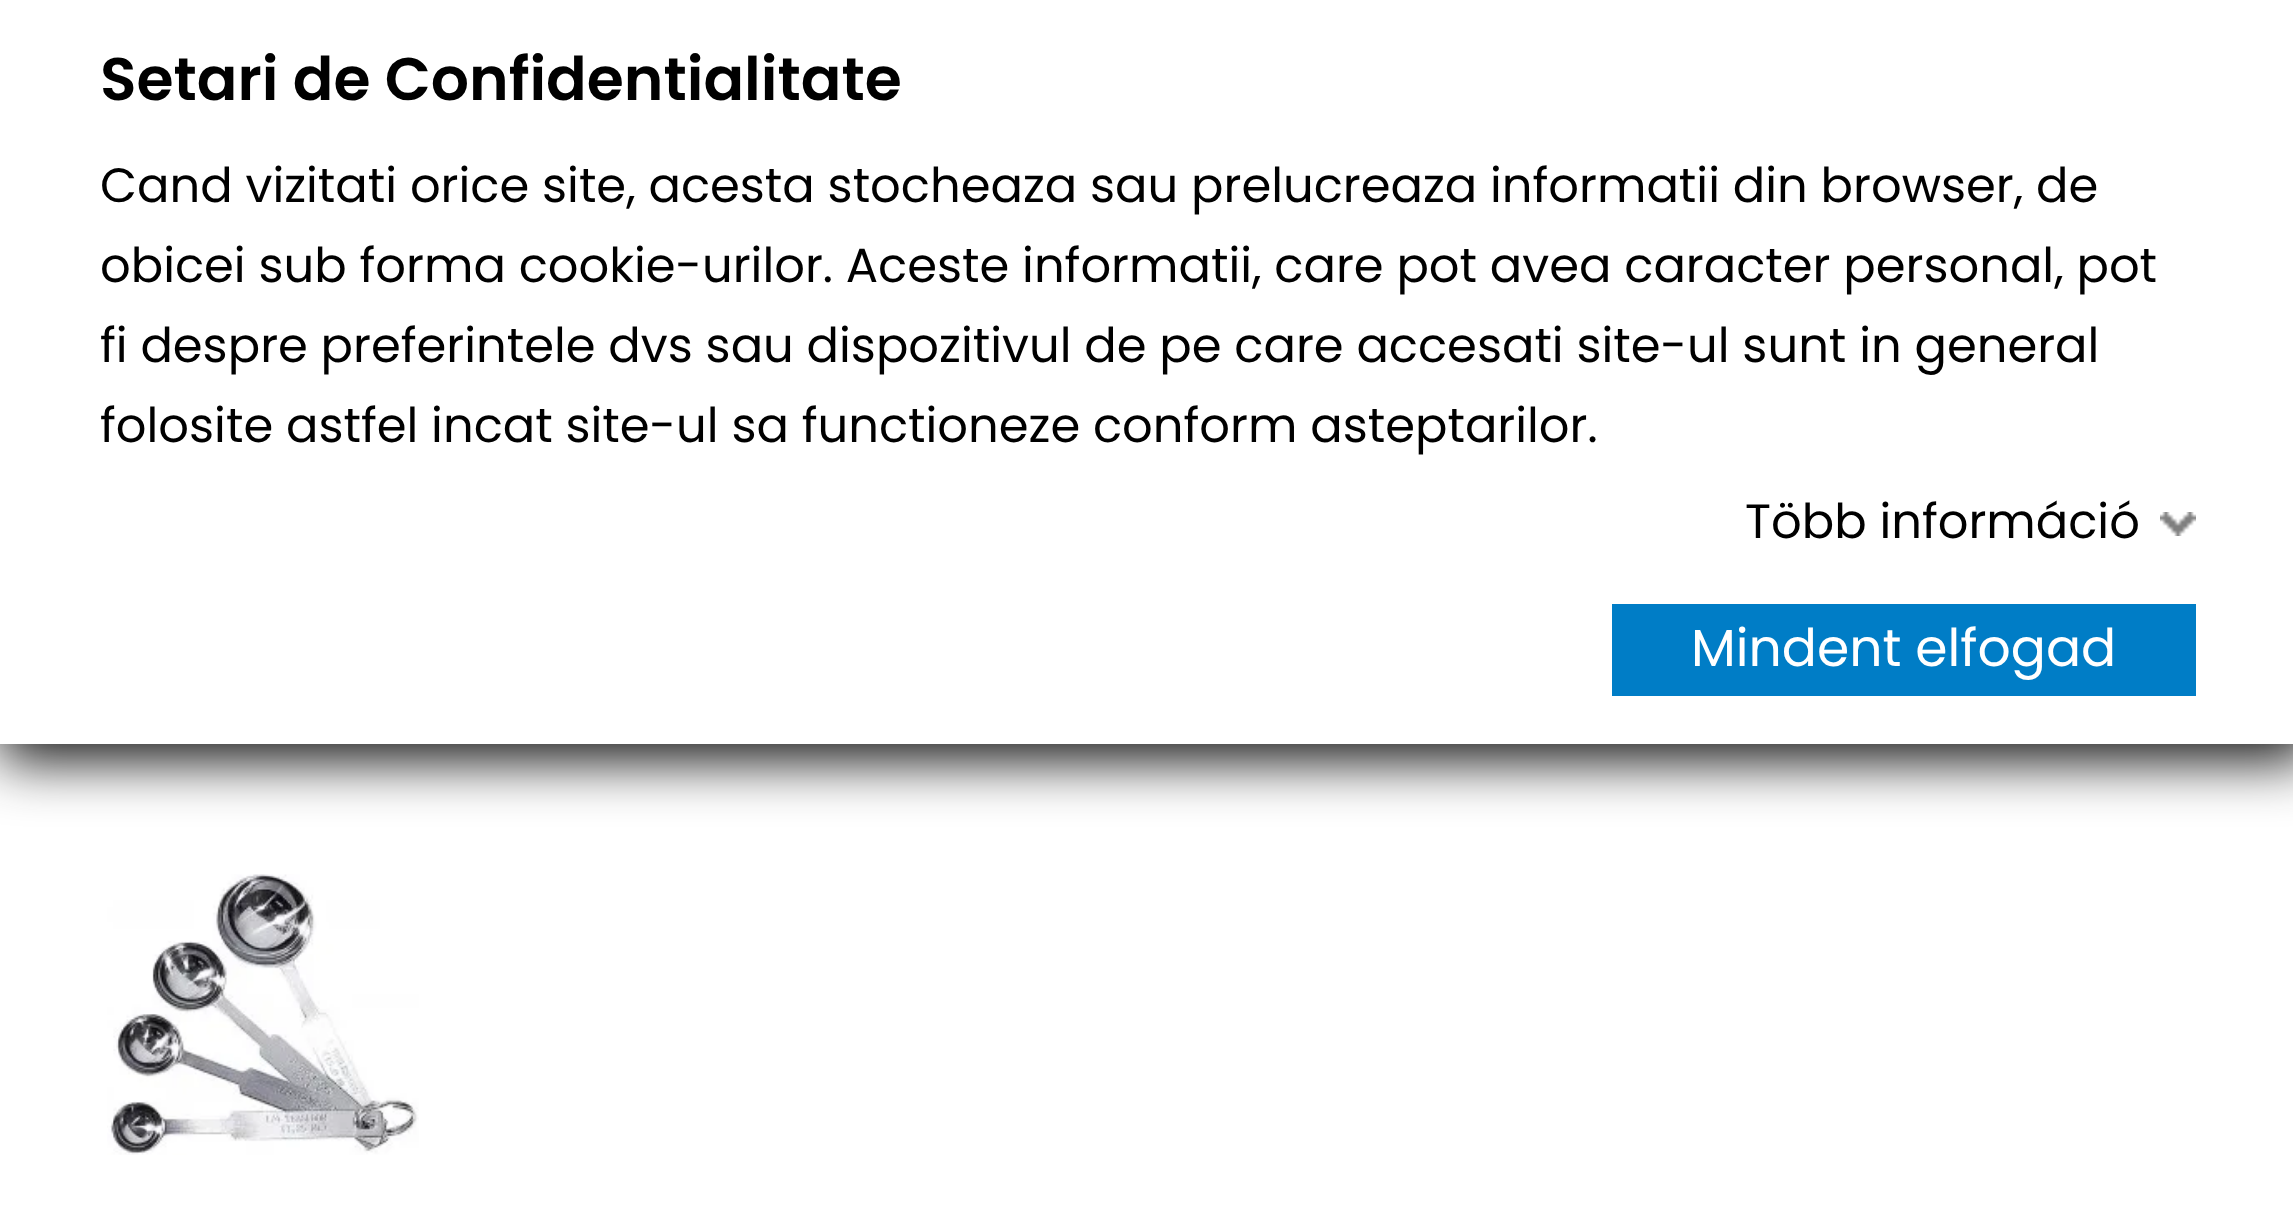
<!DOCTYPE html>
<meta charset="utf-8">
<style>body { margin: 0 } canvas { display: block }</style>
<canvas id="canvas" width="2293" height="1219"></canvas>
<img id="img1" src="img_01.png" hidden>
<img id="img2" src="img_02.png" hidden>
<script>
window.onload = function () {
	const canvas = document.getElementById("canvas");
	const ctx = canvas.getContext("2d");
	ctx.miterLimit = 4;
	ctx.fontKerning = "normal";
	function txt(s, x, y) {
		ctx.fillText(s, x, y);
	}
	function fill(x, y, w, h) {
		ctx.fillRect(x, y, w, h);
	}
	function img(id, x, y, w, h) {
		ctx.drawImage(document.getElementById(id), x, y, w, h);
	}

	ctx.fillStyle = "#FFFFFF";
	fill(0, 0, 2293, 1219);
	ctx.fillStyle = "#121212";
	ctx.filter = "blur(28px)";
	ctx.beginPath();
	ctx.rect(0, 0, 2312, 760);
	ctx.fill();
	ctx.filter = "none";
	ctx.fillStyle = "#FFFFFF";
	fill(0, 0, 2293, 744);
	img("img1", 2160, 512, 36, 24);
	ctx.fillStyle = "#007DC6";
	fill(1612, 604, 584, 92);
	img("img2", 107, 874, 312, 281);
	ctx.font = "600 60px Poppins";
	ctx.fillStyle = "#000000";
	txt("Setari de Confidentialitate", 100, 100);
	ctx.font = "48px Poppins";
	txt("Cand vizitati orice site, acesta stocheaza sau prelucreaza informatii din browser, de", 100, 202);
	txt("obicei sub forma cookie-urilor. Aceste informatii, care pot avea caracter personal, pot", 100, 282);
	txt("fi despre preferintele dvs sau dispozitivul de pe care accesati site-ul sunt in general", 100, 362);
	txt("folosite astfel incat site-ul sa functioneze conform asteptarilor.", 100, 442);
	txt("Több információ", 1745, 538);
	ctx.font = "52px Poppins";
	ctx.fillStyle = "#FFFFFF";
	txt("Mindent elfogad", 1691, 666);
};
</script>
